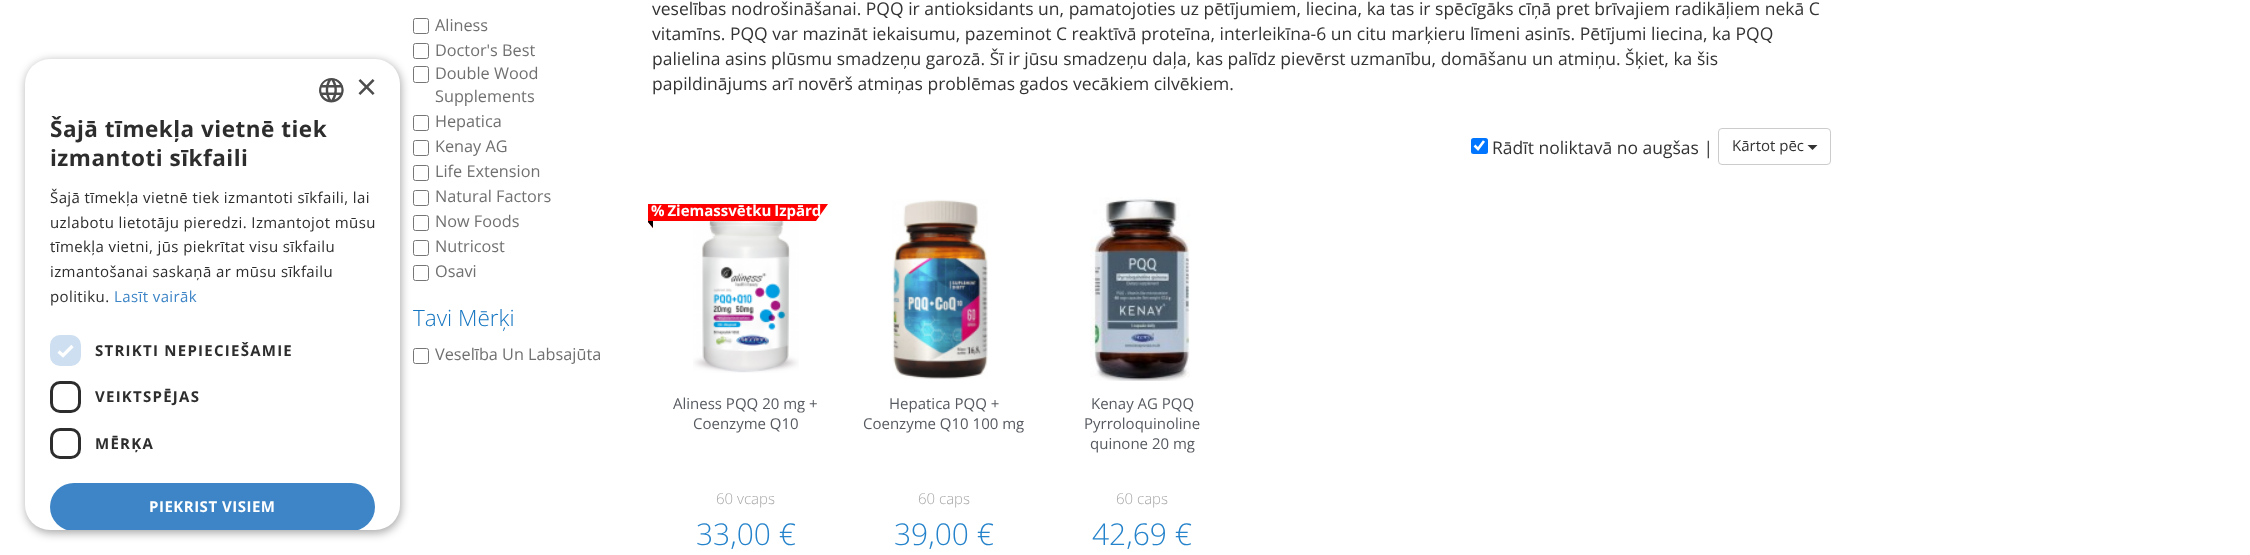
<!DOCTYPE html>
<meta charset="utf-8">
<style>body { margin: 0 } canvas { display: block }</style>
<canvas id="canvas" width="2250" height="555"></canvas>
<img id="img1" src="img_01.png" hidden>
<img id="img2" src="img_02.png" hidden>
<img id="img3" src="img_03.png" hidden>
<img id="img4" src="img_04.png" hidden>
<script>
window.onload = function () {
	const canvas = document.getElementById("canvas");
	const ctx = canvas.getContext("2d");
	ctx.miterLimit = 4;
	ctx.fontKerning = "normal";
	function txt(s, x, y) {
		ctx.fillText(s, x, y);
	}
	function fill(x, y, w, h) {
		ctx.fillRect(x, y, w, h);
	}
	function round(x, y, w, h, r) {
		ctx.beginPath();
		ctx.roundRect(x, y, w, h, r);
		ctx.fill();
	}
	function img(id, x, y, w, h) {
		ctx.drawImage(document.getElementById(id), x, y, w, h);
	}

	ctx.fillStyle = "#FFFFFF";
	fill(0, 0, 2250, 555);
	ctx.beginPath();
	ctx.roundRect(413.5, 43.5, 15, 15, 2);
	ctx.strokeStyle = "#767676";
	ctx.stroke();
	ctx.beginPath();
	ctx.roundRect(413.5, 66.5, 15, 16, 2);
	ctx.stroke();
	ctx.beginPath();
	ctx.roundRect(413.5, 115.5, 15, 15, 2);
	ctx.stroke();
	ctx.beginPath();
	ctx.roundRect(413.5, 140.5, 15, 15, 2);
	ctx.stroke();
	ctx.beginPath();
	ctx.roundRect(413.5, 165.5, 15, 15, 2);
	ctx.stroke();
	ctx.beginPath();
	ctx.roundRect(413.5, 190.5, 15, 15, 2);
	ctx.stroke();
	ctx.beginPath();
	ctx.roundRect(413.5, 215.5, 15, 15, 2);
	ctx.stroke();
	ctx.beginPath();
	ctx.roundRect(413.5, 240.5, 15, 15, 2);
	ctx.stroke();
	ctx.beginPath();
	ctx.roundRect(413.5, 265.5, 15, 15, 2);
	ctx.stroke();
	ctx.beginPath();
	ctx.roundRect(413.5, 348.5, 15, 15, 2);
	ctx.stroke();
	ctx.fillStyle = "rgba(0, 0, 0, 0.35)";
	ctx.filter = "blur(5px)";
	ctx.beginPath();
	ctx.roundRect(26, 61, 375, 472, 25);
	ctx.fill();
	ctx.filter = "none";
	ctx.fillStyle = "#FFFFFF";
	round(25, 59, 375, 471, 25);
	img("img1", 319, 78, 25, 25);
	ctx.fillStyle = "#CDDFF0";
	round(50, 335, 31, 31, 10);
	ctx.beginPath();
	ctx.moveTo(58.5, 351.5);
	ctx.lineTo(63, 355.5);
	ctx.lineTo(72.5, 346);
	ctx.strokeStyle = "#FFFFFF";
	ctx.lineWidth = 3.3;
	ctx.stroke();
	ctx.beginPath();
	ctx.roundRect(51.5, 382.5, 28, 29, 8.5);
	ctx.strokeStyle = "#2D2D2D";
	ctx.lineWidth = 3;
	ctx.stroke();
	ctx.beginPath();
	ctx.roundRect(51.5, 429.5, 28, 28, 8.5);
	ctx.stroke();
	ctx.save();
	ctx.beginPath();
	ctx.roundRect(25, 59, 375, 471, 25);
	ctx.clip();
	ctx.fillStyle = "#3D85C6";
	round(50, 483, 325, 48, 24);
	ctx.restore();
	ctx.beginPath();
	ctx.roundRect(413.5, 18.5, 15, 15, 2);
	ctx.strokeStyle = "#767676";
	ctx.lineWidth = 1;
	ctx.stroke();
	ctx.fillStyle = "#0075FF";
	round(1471, 138, 17, 16, 2.5);
	ctx.beginPath();
	ctx.moveTo(1474.5, 145.5);
	ctx.lineTo(1478, 149);
	ctx.lineTo(1484, 141);
	ctx.strokeStyle = "#FFFFFF";
	ctx.lineWidth = 2.6;
	ctx.stroke();
	ctx.beginPath();
	ctx.roundRect(1718.5, 128.5, 112, 36, 3.5);
	ctx.strokeStyle = "#CCCCCC";
	ctx.lineWidth = 1;
	ctx.stroke();
	ctx.fillStyle = "#333333";
	ctx.beginPath();
	ctx.moveTo(1807.5, 145);
	ctx.lineTo(1817.5, 145);
	ctx.lineTo(1812.5, 150);
	ctx.closePath();
	ctx.fill();
	img("img2", 693, 221, 106, 152);
	ctx.fillStyle = "#FF0000";
	ctx.beginPath();
	ctx.moveTo(648, 204);
	ctx.lineTo(828, 204);
	ctx.lineTo(816, 221);
	ctx.lineTo(653, 221);
	ctx.lineTo(653, 228);
	ctx.lineTo(648, 222);
	ctx.closePath();
	ctx.fill();
	ctx.fillStyle = "#000000";
	ctx.beginPath();
	ctx.moveTo(648, 221);
	ctx.lineTo(816, 221);
	ctx.lineTo(653, 221);
	ctx.lineTo(653, 228);
	ctx.lineTo(648, 222);
	ctx.closePath();
	ctx.fill();
	img("img3", 892, 199, 96, 180);
	img("img4", 1090, 197, 100, 184);
	ctx.font = "36px Liberation Sans";
	ctx.fillStyle = "#4D4D4D";
	txt("×", 356, 99);
	ctx.letterSpacing = "0.5px";
	ctx.font = "bold 22.5px Open Sans";
	ctx.fillStyle = "#2D2D2D";
	txt("Šajā tīmekļa vietnē tiek", 50, 137);
	txt("izmantoti sīkfaili", 50, 166);
	ctx.letterSpacing = "0.4px";
	ctx.font = "15px Open Sans";
	txt("Šajā tīmekļa vietnē tiek izmantoti sīkfaili, lai", 50, 203);
	txt("uzlabotu lietotāju pieredzi. Izmantojot mūsu", 50, 228);
	txt("tīmekļa vietni, jūs piekrītat visu sīkfailu", 50, 252);
	txt("izmantošanai saskaņā ar mūsu sīkfailu", 50, 277);
	txt("politiku.", 50, 302);
	ctx.fillStyle = "#3D85C6";
	txt("Lasīt vairāk", 114, 302);
	ctx.letterSpacing = "1.25px";
	ctx.font = "bold 15px Open Sans";
	ctx.fillStyle = "#2D2D2D";
	txt("STRIKTI NEPIECIEŠAMIE", 95, 356);
	txt("VEIKTSPĒJAS", 95, 402);
	txt("MĒRĶA", 95, 449);
	ctx.letterSpacing = "0.5px";
	ctx.fillStyle = "#FFFFFF";
	txt("PIEKRIST VISIEM", 149, 512);
	ctx.letterSpacing = "0px";
	ctx.font = "16.25px Open Sans";
	ctx.fillStyle = "#707070";
	txt("Aliness", 435, 31);
	txt("Doctor's Best", 435, 56);
	txt("Double Wood", 435, 79);
	txt("Supplements", 435, 102);
	txt("Hepatica", 435, 127);
	txt("Kenay AG", 435, 152);
	txt("Life Extension", 435, 177);
	txt("Natural Factors", 435, 202);
	txt("Now Foods", 435, 227);
	txt("Nutricost", 435, 252);
	txt("Osavi", 435, 277);
	ctx.font = "300 22.5px Open Sans";
	ctx.fillStyle = "#1676C1";
	txt("Tavi Mērķi", 413, 326);
	ctx.font = "16.25px Open Sans";
	ctx.fillStyle = "#707070";
	txt("Veselība Un Labsajūta", 435, 360);
	ctx.font = "17.5px Open Sans";
	ctx.fillStyle = "#333333";
	txt("veselības nodrošināšanai. PQQ ir antioksidants un, pamatojoties uz pētījumiem, liecina, ka tas ir spēcīgāks cīņā pret brīvajiem radikāļiem nekā C", 652, 15);
	txt("vitamīns. PQQ var mazināt iekaisumu, pazeminot C reaktīvā proteīna, interleikīna-6 un citu marķieru līmeni asinīs.‌ Pētījumi liecina, ka PQQ", 652, 40);
	txt("palielina asins plūsmu smadzeņu garozā. Šī ir jūsu smadzeņu daļa, kas palīdz pievērst uzmanību, domāšanu un atmiņu. Šķiet, ka šis", 652, 65);
	txt("papildinājums arī novērš atmiņas problēmas gados vecākiem cilvēkiem.", 652, 90);
	txt("Rādīt noliktavā no augšas |", 1492, 154);
	ctx.font = "15px Open Sans";
	txt("Kārtot pēc", 1732, 151);
	ctx.save();
	ctx.beginPath();
	ctx.moveTo(647, 204);
	ctx.lineTo(828.5, 204);
	ctx.lineTo(816, 221);
	ctx.lineTo(653.5, 221);
	ctx.lineTo(653.5, 227.5);
	ctx.lineTo(647, 221);
	ctx.closePath();
	ctx.clip();
	ctx.wordSpacing = "-1px";
	ctx.font = "bold 15px Open Sans";
	ctx.fillStyle = "#FFFFFF";
	txt("% Ziemassvētku Izpārd", 651, 216);
	ctx.restore();
	ctx.fillStyle = "#565A60";
	txt("Aliness PQQ 20 mg +", 673, 409);
	txt("Coenzyme Q10", 693, 429);
	ctx.font = "300 15px Open Sans";
	ctx.fillStyle = "#A7A7A7";
	txt("60 vcaps", 716, 504);
	ctx.font = "300 30px Open Sans";
	ctx.fillStyle = "#2583CB";
	txt("33,00 €", 696, 545);
	ctx.font = "15px Open Sans";
	ctx.fillStyle = "#565A60";
	txt("Hepatica PQQ +", 889, 409);
	txt("Coenzyme Q10 100 mg", 863, 429);
	ctx.font = "300 15px Open Sans";
	ctx.fillStyle = "#A7A7A7";
	txt("60 caps", 918, 504);
	ctx.font = "300 30px Open Sans";
	ctx.fillStyle = "#2583CB";
	txt("39,00 €", 894, 545);
	ctx.font = "15px Open Sans";
	ctx.fillStyle = "#565A60";
	txt("Kenay AG PQQ", 1091, 409);
	txt("Pyrroloquinoline", 1084, 429);
	txt("quinone 20 mg", 1090, 449);
	ctx.font = "300 15px Open Sans";
	ctx.fillStyle = "#A7A7A7";
	txt("60 caps", 1116, 504);
	ctx.font = "300 30px Open Sans";
	ctx.fillStyle = "#2583CB";
	txt("42,69 €", 1092, 545);
};
</script>
